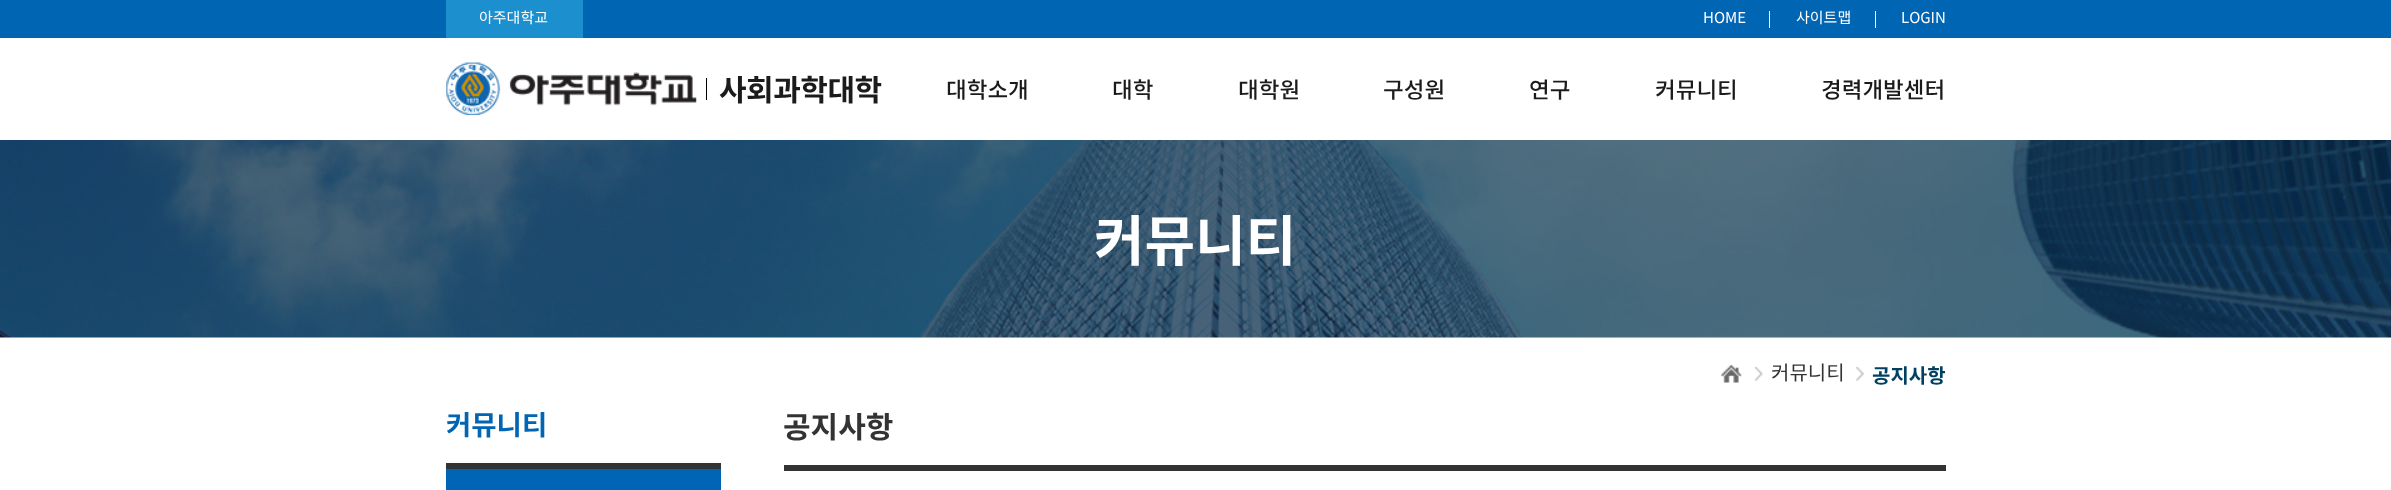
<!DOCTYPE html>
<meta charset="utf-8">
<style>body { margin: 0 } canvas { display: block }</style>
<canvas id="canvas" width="2391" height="490"></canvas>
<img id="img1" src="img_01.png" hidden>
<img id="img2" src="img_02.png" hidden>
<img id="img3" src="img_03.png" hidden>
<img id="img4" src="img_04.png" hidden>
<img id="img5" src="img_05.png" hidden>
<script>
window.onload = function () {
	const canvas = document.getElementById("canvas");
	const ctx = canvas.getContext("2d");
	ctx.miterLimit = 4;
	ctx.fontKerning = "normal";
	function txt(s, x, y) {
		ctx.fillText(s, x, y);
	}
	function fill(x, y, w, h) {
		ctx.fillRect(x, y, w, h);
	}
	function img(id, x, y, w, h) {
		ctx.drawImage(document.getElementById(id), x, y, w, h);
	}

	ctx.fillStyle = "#FFFFFF";
	fill(0, 0, 2391, 490);
	ctx.fillStyle = "#0065B3";
	fill(0, 0, 2391, 38);
	ctx.fillStyle = "#1C8FCE";
	fill(446, 0, 137, 38);
	ctx.fillStyle = "#FFFFFF";
	fill(1769, 11, 1, 17);
	fill(1875, 11, 1, 17);
	img("img1", 446, 62, 251, 53);
	ctx.fillStyle = "#000000";
	fill(706, 78, 1, 22);
	img("img2", 0, 140, 2391, 198);
	img("img3", 1721, 365, 21, 18);
	img("img4", 1755, 366, 8, 15);
	img("img5", 1856, 366, 8, 15);
	ctx.fillStyle = "#333333";
	fill(446, 463, 275, 6);
	ctx.fillStyle = "#0065B4";
	fill(446, 469, 275, 21);
	ctx.fillStyle = "#333333";
	fill(784, 465, 1162, 6);
	ctx.font = "15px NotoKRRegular";
	ctx.fillStyle = "#FFFFFF";
	txt("아주대학교", 479, 23);
	txt("HOME", 1703, 23);
	txt("사이트맵", 1796, 23);
	txt("LOGIN", 1901, 23);
	ctx.letterSpacing = "-0.5px";
	ctx.font = "bold 30px Noto Sans KR";
	ctx.fillStyle = "#1B1B1B";
	txt("사회과학대학", 719, 101);
	ctx.letterSpacing = "0px";
	ctx.font = "500 22.5px Noto Sans KR";
	txt("대학소개", 946, 98);
	txt("대학", 1112, 98);
	txt("대학원", 1238, 98);
	txt("구성원", 1383, 98);
	txt("연구", 1529, 98);
	txt("커뮤니티", 1655, 98);
	txt("경력개발센터", 1821, 98);
	ctx.font = "bold 55px Noto Sans KR";
	ctx.fillStyle = "#FFFFFF";
	txt("커뮤니티", 1094, 261);
	ctx.font = "20px NotoKRRegular";
	ctx.fillStyle = "#333333";
	txt("커뮤니티", 1771, 380);
	ctx.font = "bold 20px Noto Sans KR";
	ctx.fillStyle = "#004161";
	txt("공지사항", 1872, 383);
	ctx.font = "bold 27.5px Noto Sans KR";
	ctx.fillStyle = "#0065B4";
	txt("커뮤니티", 446, 435);
	ctx.font = "bold 30px Noto Sans KR";
	ctx.fillStyle = "#333333";
	txt("공지사항", 783, 438);
};
</script>
